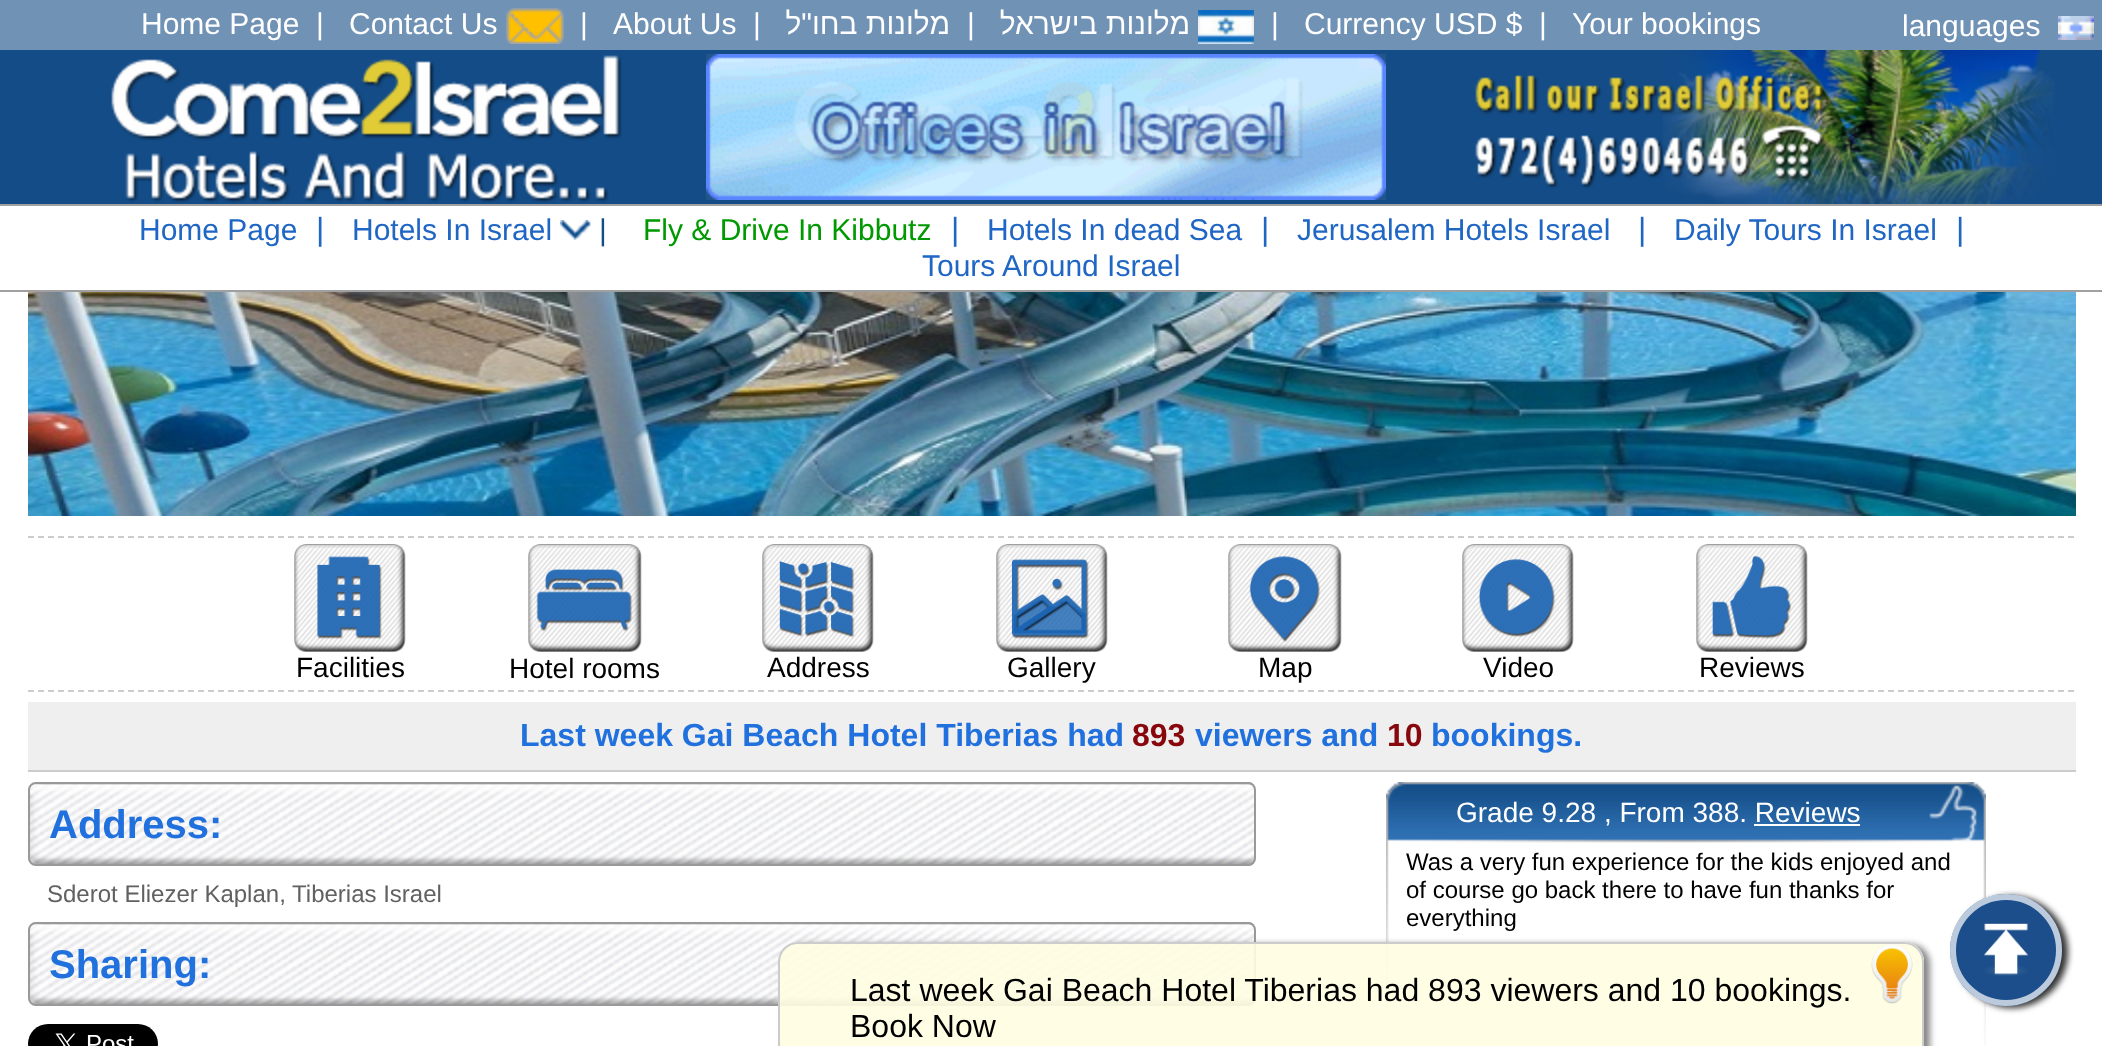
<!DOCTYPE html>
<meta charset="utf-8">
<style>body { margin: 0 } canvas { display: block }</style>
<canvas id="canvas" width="2102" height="1046"></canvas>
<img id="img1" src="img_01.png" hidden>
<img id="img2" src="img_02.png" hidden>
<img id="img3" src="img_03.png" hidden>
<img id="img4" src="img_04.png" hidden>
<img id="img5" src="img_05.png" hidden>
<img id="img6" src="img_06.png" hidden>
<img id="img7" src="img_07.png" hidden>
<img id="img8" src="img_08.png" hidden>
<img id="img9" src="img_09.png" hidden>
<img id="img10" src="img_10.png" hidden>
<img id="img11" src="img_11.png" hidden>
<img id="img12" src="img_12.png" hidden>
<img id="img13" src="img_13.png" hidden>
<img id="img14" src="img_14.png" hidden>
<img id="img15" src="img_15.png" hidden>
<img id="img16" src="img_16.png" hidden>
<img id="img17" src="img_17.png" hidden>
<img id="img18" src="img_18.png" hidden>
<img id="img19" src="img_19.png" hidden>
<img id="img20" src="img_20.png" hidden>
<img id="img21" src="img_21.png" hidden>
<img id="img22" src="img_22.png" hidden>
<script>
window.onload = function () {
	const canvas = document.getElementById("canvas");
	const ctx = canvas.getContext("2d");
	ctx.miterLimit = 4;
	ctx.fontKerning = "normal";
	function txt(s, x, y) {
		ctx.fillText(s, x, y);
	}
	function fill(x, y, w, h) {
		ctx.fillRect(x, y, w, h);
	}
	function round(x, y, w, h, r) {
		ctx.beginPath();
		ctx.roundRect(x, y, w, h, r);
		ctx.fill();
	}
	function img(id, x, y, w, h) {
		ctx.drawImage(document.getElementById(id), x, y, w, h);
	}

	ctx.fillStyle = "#FFFFFF";
	fill(0, 0, 2102, 1046);
	ctx.fillStyle = "#7092B5";
	fill(0, 0, 2102, 50);
	img("img1", 506, 8, 58, 36);
	img("img2", 1198, 10, 56, 34);
	img("img3", 2058, 16, 36, 24);
	ctx.fillStyle = "#144C87";
	fill(0, 50, 2102, 154);
	img("img4", 1663, 50, 392, 154);
	img("img5", 111, 55, 511, 148);
	img("img6", 706, 54, 680, 146);
	img("img7", 1475, 75, 351, 113);
	ctx.fillStyle = "#A0A0A0";
	fill(0, 204, 2102, 2);
	fill(0, 290, 2102, 2);
	img("img8", 560, 220, 31, 20);
	img("img9", 28, 292, 2048, 224);
	ctx.beginPath();
	ctx.moveTo(28, 537);
	ctx.lineTo(2076, 537);
	ctx.strokeStyle = "#CCCCCC";
	ctx.lineWidth = 2;
	ctx.setLineDash([6, 4]);
	ctx.stroke();
	ctx.beginPath();
	ctx.moveTo(28, 691);
	ctx.lineTo(2076, 691);
	ctx.stroke();
	img("img10", 294, 544, 112, 108);
	img("img11", 528, 544, 114, 108);
	img("img12", 762, 544, 112, 108);
	img("img13", 996, 544, 112, 108);
	img("img14", 1228, 544, 114, 108);
	img("img15", 1462, 544, 112, 108);
	img("img16", 1696, 544, 112, 108);
	ctx.fillStyle = "#EFEFEF";
	fill(28, 702, 2048, 68);
	ctx.fillStyle = "#CCCCCC";
	fill(28, 770, 2048, 2);
	img("img17", 28, 782, 1228, 84);
	ctx.beginPath();
	ctx.roundRect(29, 783, 1226, 82, 7);
	ctx.strokeStyle = "#999999";
	ctx.setLineDash([]);
	ctx.stroke();
	img("img18", 28, 922, 1228, 84);
	ctx.beginPath();
	ctx.roundRect(29, 923, 1226, 82, 7);
	ctx.stroke();
	img("img19", 28, 1024, 130, 22);
	img("img20", 1386, 782, 600, 264);
	ctx.fillStyle = "#FFFFFF";
	fill(1754, 824, 106, 2);
	ctx.fillStyle = "#333333";
	ctx.filter = "blur(3px)";
	ctx.beginPath();
	ctx.roundRect(1956, 896, 112, 112, 56);
	ctx.fill();
	ctx.filter = "none";
	ctx.fillStyle = "#1B4E8A";
	ctx.beginPath();
	ctx.arc(2006, 950, 56, 0, Math.PI * 2);
	ctx.fill();
	img("img21", 1983, 923, 46, 53);
	ctx.beginPath();
	ctx.arc(2006, 950, 53, 0, Math.PI * 2);
	ctx.strokeStyle = "rgba(255, 255, 255, 0.7)";
	ctx.lineWidth = 6;
	ctx.stroke();
	ctx.save();
	ctx.beginPath();
	ctx.moveTo(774, 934);
	ctx.lineTo(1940, 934);
	ctx.lineTo(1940, 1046);
	ctx.lineTo(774, 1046);
	ctx.closePath();
	ctx.moveTo(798, 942);
	ctx.lineTo(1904, 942);
	ctx.bezierCurveTo(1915, 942, 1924, 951, 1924, 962);
	ctx.lineTo(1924, 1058);
	ctx.bezierCurveTo(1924, 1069, 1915, 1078, 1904, 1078);
	ctx.lineTo(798, 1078);
	ctx.bezierCurveTo(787, 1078, 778, 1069, 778, 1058);
	ctx.lineTo(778, 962);
	ctx.bezierCurveTo(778, 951, 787, 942, 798, 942);
	ctx.closePath();
	ctx.clip("evenodd");
	ctx.fillStyle = "#888888";
	ctx.filter = "blur(3px)";
	ctx.beginPath();
	ctx.roundRect(784, 944, 1146, 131, 20);
	ctx.fill();
	ctx.filter = "none";
	ctx.restore();
	ctx.fillStyle = "rgba(255, 254, 226, 0.9)";
	round(778, 942, 1146, 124, 20);
	img("img22", 1871, 944, 42, 60);
	ctx.beginPath();
	ctx.roundRect(779, 943, 1144, 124, 19);
	ctx.strokeStyle = "#CCCCCC";
	ctx.lineWidth = 2;
	ctx.stroke();
	ctx.font = "30px Liberation Sans";
	ctx.fillStyle = "#FFFFFF";
	txt("Home Page", 141, 34);
	txt("|", 316, 34);
	txt("Contact Us", 349, 34);
	txt("|", 580, 34);
	txt("About Us", 613, 34);
	txt("|", 753, 34);
	ctx.direction = "rtl";
	txt("מלונות בחו\"ל", 950, 34);
	ctx.direction = "ltr";
	txt("|", 967, 34);
	ctx.direction = "rtl";
	txt("מלונות בישראל", 1190, 34);
	ctx.direction = "ltr";
	txt("|", 1271, 34);
	txt("Currency USD $", 1304, 34);
	txt("|", 1539, 34);
	txt("Your bookings", 1572, 34);
	txt("languages", 1902, 36);
	ctx.fillStyle = "#2066C5";
	txt("Home Page", 139, 240);
	ctx.font = "32px Liberation Sans";
	txt("|", 316, 240);
	ctx.font = "30px Liberation Sans";
	txt("Hotels In Israel", 352, 240);
	ctx.fillStyle = "#144C87";
	txt("|", 599, 240);
	ctx.fillStyle = "#009900";
	txt("Fly & Drive In Kibbutz", 643, 240);
	ctx.font = "32px Liberation Sans";
	ctx.fillStyle = "#2066C5";
	txt("|", 951, 240);
	ctx.font = "30px Liberation Sans";
	txt("Hotels In dead Sea", 987, 240);
	ctx.font = "32px Liberation Sans";
	txt("|", 1261, 240);
	ctx.font = "30px Liberation Sans";
	txt("Jerusalem Hotels Israel", 1297, 240);
	ctx.font = "32px Liberation Sans";
	txt("|", 1638, 240);
	ctx.font = "30px Liberation Sans";
	txt("Daily Tours In Israel", 1674, 240);
	ctx.font = "32px Liberation Sans";
	txt("|", 1956, 240);
	ctx.font = "30px Liberation Sans";
	txt("Tours Around Israel", 922, 276);
	ctx.font = "28px Liberation Sans";
	ctx.fillStyle = "#000000";
	txt("Facilities", 296, 677);
	txt("Hotel rooms", 509, 678);
	txt("Address", 767, 677);
	txt("Gallery", 1007, 677);
	txt("Map", 1258, 677);
	txt("Video", 1483, 677);
	txt("Reviews", 1699, 677);
	ctx.font = "bold 32px Liberation Sans";
	ctx.fillStyle = "#2070DD";
	txt("Last week Gai Beach Hotel Tiberias had", 520, 746);
	ctx.fillStyle = "#88070D";
	txt("893", 1132, 746);
	ctx.fillStyle = "#2070DD";
	txt("viewers and", 1195, 746);
	ctx.fillStyle = "#88070D";
	txt("10", 1387, 746);
	ctx.fillStyle = "#2070DD";
	txt("bookings.", 1431, 746);
	ctx.font = "bold 40px Liberation Sans";
	txt("Address:", 49, 838);
	ctx.font = "24px Liberation Sans";
	ctx.fillStyle = "#616161";
	txt("Sderot Eliezer Kaplan, Tiberias Israel", 47, 902);
	ctx.font = "bold 40px Liberation Sans";
	ctx.fillStyle = "#2070DD";
	txt("Sharing:", 49, 978);
	ctx.font = "28px Liberation Sans";
	ctx.fillStyle = "#FFFFFF";
	txt("Grade 9.28 , From 388. Reviews", 1456, 822);
	ctx.font = "24px Liberation Sans";
	ctx.fillStyle = "#000000";
	txt("Was a very fun experience for the kids enjoyed and", 1406, 870);
	txt("of course go back there to have fun thanks for", 1406, 898);
	txt("everything", 1406, 926);
	ctx.font = "32px Liberation Sans";
	txt("Last week Gai Beach Hotel Tiberias had 893 viewers and 10 bookings.", 850, 1001);
	txt("Book Now", 850, 1037);
};
</script>
